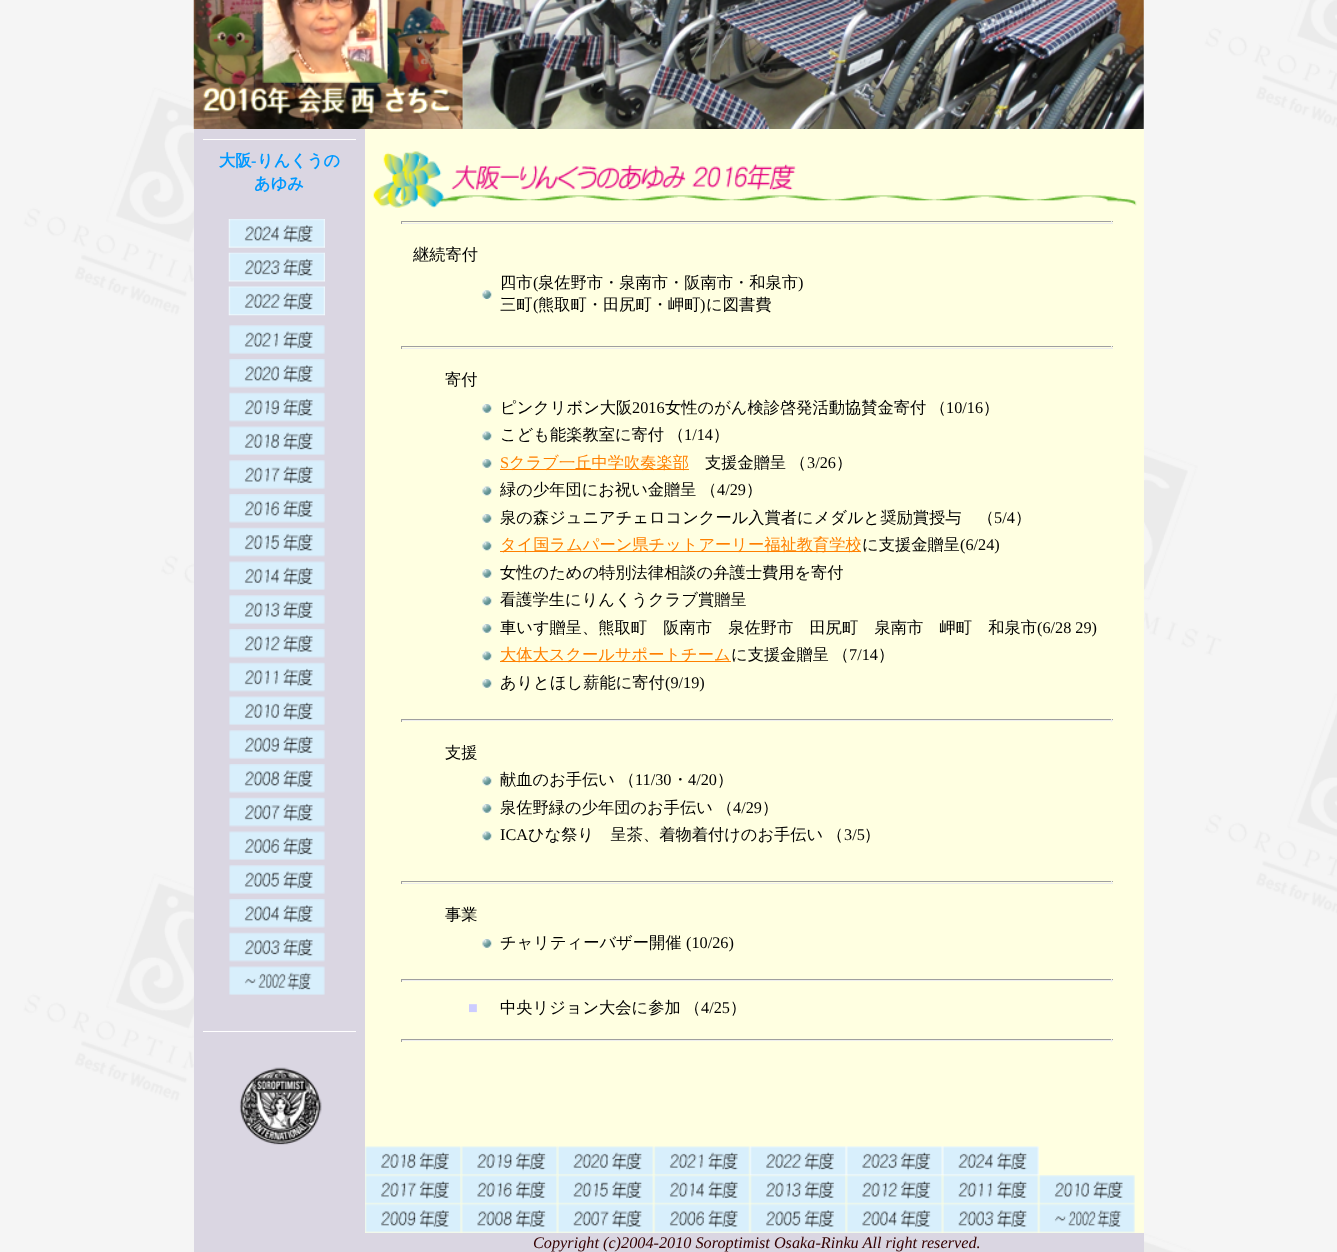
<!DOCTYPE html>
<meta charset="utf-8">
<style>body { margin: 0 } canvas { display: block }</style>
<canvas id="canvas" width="1337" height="1252"></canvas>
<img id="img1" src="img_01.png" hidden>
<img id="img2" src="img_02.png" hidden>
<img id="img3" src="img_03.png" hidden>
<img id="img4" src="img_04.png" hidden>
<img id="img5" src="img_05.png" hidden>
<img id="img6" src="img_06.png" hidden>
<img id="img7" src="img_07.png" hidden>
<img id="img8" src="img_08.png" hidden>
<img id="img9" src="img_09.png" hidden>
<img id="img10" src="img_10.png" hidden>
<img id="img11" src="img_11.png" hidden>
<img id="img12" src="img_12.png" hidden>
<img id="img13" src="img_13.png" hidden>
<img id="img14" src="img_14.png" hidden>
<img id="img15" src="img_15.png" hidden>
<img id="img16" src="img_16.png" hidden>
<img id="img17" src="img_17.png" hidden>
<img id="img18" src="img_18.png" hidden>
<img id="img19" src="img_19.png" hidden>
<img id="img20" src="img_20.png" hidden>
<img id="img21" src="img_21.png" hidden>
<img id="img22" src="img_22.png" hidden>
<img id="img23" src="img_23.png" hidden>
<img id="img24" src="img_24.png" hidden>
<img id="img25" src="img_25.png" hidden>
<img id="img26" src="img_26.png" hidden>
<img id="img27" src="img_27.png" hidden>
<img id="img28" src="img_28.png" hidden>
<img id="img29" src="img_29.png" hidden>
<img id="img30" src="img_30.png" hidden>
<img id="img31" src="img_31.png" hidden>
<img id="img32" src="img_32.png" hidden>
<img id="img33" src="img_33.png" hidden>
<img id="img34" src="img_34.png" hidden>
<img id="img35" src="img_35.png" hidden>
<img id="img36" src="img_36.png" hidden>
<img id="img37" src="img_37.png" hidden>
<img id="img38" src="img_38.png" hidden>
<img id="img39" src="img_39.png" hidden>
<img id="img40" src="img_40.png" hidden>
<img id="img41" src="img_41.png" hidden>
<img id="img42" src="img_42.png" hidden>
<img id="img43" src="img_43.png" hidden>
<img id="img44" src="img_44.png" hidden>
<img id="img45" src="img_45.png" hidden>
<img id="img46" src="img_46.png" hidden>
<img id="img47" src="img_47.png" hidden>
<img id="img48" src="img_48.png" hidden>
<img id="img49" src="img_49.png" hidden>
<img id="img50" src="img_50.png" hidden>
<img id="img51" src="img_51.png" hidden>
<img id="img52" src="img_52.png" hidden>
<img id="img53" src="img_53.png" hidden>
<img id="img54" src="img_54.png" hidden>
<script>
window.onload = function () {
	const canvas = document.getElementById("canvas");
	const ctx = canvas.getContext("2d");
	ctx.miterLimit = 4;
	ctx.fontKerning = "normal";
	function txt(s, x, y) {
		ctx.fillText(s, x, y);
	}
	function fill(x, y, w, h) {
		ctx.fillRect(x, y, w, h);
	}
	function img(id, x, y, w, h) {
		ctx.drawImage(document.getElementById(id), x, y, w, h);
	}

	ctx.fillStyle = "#FFFFFF";
	fill(0, 0, 1337, 1252);
	img("img1", 0, 0, 1337, 1252);
	img("img2", 193, 0, 951, 129);
	ctx.fillStyle = "#DAD6E2";
	fill(194, 129, 171, 1123);
	ctx.fillStyle = "#FFFFFF";
	fill(203, 139, 153, 1);
	img("img3", 228, 219, 97, 29);
	img("img4", 228, 252, 97, 30);
	img("img5", 228, 286, 97, 30);
	img("img6", 229, 325, 96, 29);
	img("img7", 229, 359, 96, 29);
	img("img8", 229, 392, 96, 30);
	img("img9", 229, 426, 96, 29);
	img("img10", 229, 460, 96, 29);
	img("img11", 229, 494, 96, 29);
	img("img12", 229, 527, 96, 30);
	img("img13", 229, 561, 96, 29);
	img("img14", 229, 595, 96, 29);
	img("img15", 229, 629, 96, 29);
	img("img16", 229, 662, 96, 30);
	img("img17", 229, 696, 96, 29);
	img("img18", 229, 730, 96, 29);
	img("img19", 229, 764, 96, 29);
	img("img20", 229, 797, 96, 30);
	img("img21", 229, 831, 96, 29);
	img("img22", 229, 865, 96, 29);
	img("img23", 229, 899, 96, 29);
	img("img24", 229, 932, 96, 30);
	img("img25", 229, 966, 96, 29);
	fill(203, 1031, 153, 1);
	img("img26", 239, 1067, 83, 78);
	ctx.fillStyle = "#FFFFE1";
	fill(365, 129, 779, 1104);
	img("img27", 373, 151, 764, 57);
	ctx.fillStyle = "#9F9F9F";
	fill(401, 221, 712, 1);
	ctx.fillStyle = "#EEEEEE";
	fill(1111, 221, 1, 3);
	fill(401, 223, 712, 1);
	ctx.fillStyle = "#9F9F9F";
	fill(401, 221, 1, 3);
	img("img28", 482, 290, 10, 9);
	fill(401, 346, 712, 1);
	ctx.fillStyle = "#EEEEEE";
	fill(1111, 346, 1, 3);
	fill(401, 348, 712, 1);
	ctx.fillStyle = "#9F9F9F";
	fill(401, 346, 1, 3);
	img("img29", 482, 404, 10, 9);
	img("img30", 482, 431, 10, 10);
	img("img29", 482, 459, 10, 9);
	ctx.fillStyle = "#FF8000";
	fill(500, 469, 189, 1);
	img("img30", 482, 486, 10, 10);
	img("img29", 482, 514, 10, 9);
	img("img30", 482, 541, 10, 10);
	fill(500, 551, 361, 1);
	img("img29", 482, 569, 10, 9);
	img("img30", 482, 596, 10, 10);
	img("img29", 482, 624, 10, 9);
	img("img30", 482, 651, 10, 10);
	fill(500, 661, 231, 1);
	img("img31", 482, 679, 10, 9);
	ctx.fillStyle = "#9F9F9F";
	fill(401, 719, 712, 1);
	ctx.fillStyle = "#EEEEEE";
	fill(1111, 719, 1, 3);
	fill(401, 720, 712, 1);
	ctx.fillStyle = "#9F9F9F";
	fill(401, 719, 1, 3);
	img("img30", 482, 776, 10, 10);
	img("img29", 482, 804, 10, 9);
	img("img30", 482, 831, 10, 10);
	fill(401, 881, 712, 1);
	ctx.fillStyle = "#EEEEEE";
	fill(1111, 881, 1, 3);
	fill(401, 883, 712, 1);
	ctx.fillStyle = "#9F9F9F";
	fill(401, 881, 1, 3);
	img("img29", 482, 939, 10, 9);
	fill(401, 979, 712, 1);
	ctx.fillStyle = "#EEEEEE";
	fill(1111, 979, 1, 3);
	fill(401, 980, 712, 1);
	ctx.fillStyle = "#9F9F9F";
	fill(401, 979, 1, 3);
	fill(401, 1039, 712, 1);
	ctx.fillStyle = "#EEEEEE";
	fill(1111, 1039, 1, 3);
	fill(401, 1040, 712, 1);
	ctx.fillStyle = "#9F9F9F";
	fill(401, 1039, 1, 3);
	img("img32", 365, 1146, 97, 30);
	img("img33", 461, 1146, 97, 30);
	img("img34", 557, 1146, 97, 30);
	img("img35", 654, 1146, 96, 30);
	img("img36", 750, 1146, 97, 30);
	img("img37", 846, 1146, 97, 30);
	img("img38", 942, 1146, 97, 30);
	img("img39", 365, 1175, 97, 29);
	img("img40", 461, 1175, 97, 29);
	img("img41", 557, 1175, 97, 29);
	img("img42", 654, 1175, 96, 29);
	img("img43", 750, 1175, 97, 29);
	img("img44", 846, 1175, 97, 29);
	img("img45", 942, 1175, 97, 29);
	img("img46", 1039, 1175, 96, 29);
	img("img47", 365, 1204, 97, 29);
	img("img48", 461, 1204, 97, 29);
	img("img49", 557, 1204, 97, 29);
	img("img50", 654, 1204, 96, 29);
	img("img51", 750, 1204, 97, 29);
	img("img52", 846, 1204, 97, 29);
	img("img53", 942, 1204, 97, 29);
	img("img54", 1039, 1204, 96, 29);
	ctx.fillStyle = "#DAD6E2";
	fill(365, 1233, 779, 19);
	ctx.font = "bold 16.25px WenQuanYi Zen Hei";
	ctx.fillStyle = "#0099FF";
	txt("大阪", 219, 166);
	ctx.font = "bold 16.25px Liberation Serif";
	txt("-", 251, 166);
	ctx.font = "bold 16.25px WenQuanYi Zen Hei";
	txt("りんくうの", 257, 166);
	txt("あゆみ", 254, 189);
	ctx.font = "500 16.25px WenQuanYi Zen Hei";
	ctx.fillStyle = "#000000";
	txt("継続寄付", 413, 260);
	txt("四市", 500, 288);
	ctx.font = "16.25px Liberation Serif";
	txt("(", 533, 288);
	ctx.font = "500 16.25px WenQuanYi Zen Hei";
	txt("泉佐野市・泉南市・阪南市・和泉市", 538, 288);
	ctx.font = "16.25px Liberation Serif";
	txt(")", 798, 288);
	ctx.font = "500 16.25px WenQuanYi Zen Hei";
	txt("三町", 500, 310);
	ctx.font = "16.25px Liberation Serif";
	txt("(", 533, 310);
	ctx.font = "500 16.25px WenQuanYi Zen Hei";
	txt("熊取町・田尻町・岬町", 538, 310);
	ctx.font = "16.25px Liberation Serif";
	txt(")", 700, 310);
	ctx.font = "500 16.25px WenQuanYi Zen Hei";
	txt("に図書費", 706, 310);
	txt("寄付", 445, 385);
	txt("ピンクリボン大阪", 500, 413);
	ctx.font = "16.25px Liberation Serif";
	txt("2016", 632, 413);
	ctx.wordSpacing = "-1px";
	ctx.font = "500 16.25px WenQuanYi Zen Hei";
	txt("女性のがん検診啓発活動協賛金寄付 （", 665, 413);
	ctx.wordSpacing = "0px";
	ctx.font = "16.25px Liberation Serif";
	txt("10/16", 946, 413);
	ctx.font = "500 16.25px WenQuanYi Zen Hei";
	txt("）", 983, 413);
	ctx.wordSpacing = "-1px";
	txt("こども能楽教室に寄付 （", 500, 440);
	ctx.wordSpacing = "0px";
	ctx.font = "16.25px Liberation Serif";
	txt("1/14", 684, 440);
	ctx.font = "500 16.25px WenQuanYi Zen Hei";
	txt("）", 713, 440);
	ctx.font = "16.25px Liberation Serif";
	ctx.fillStyle = "#FF8000";
	txt("S", 500, 468);
	ctx.font = "500 16.25px WenQuanYi Zen Hei";
	txt("クラブ一丘中学吹奏楽部", 509, 468);
	ctx.wordSpacing = "-1px";
	ctx.fillStyle = "#000000";
	txt("支援金贈呈 （", 705, 468);
	ctx.wordSpacing = "0px";
	ctx.font = "16.25px Liberation Serif";
	txt("3/26", 807, 468);
	ctx.font = "500 16.25px WenQuanYi Zen Hei";
	txt("）", 836, 468);
	ctx.wordSpacing = "-1px";
	txt("緑の少年団にお祝い金贈呈 （", 500, 495);
	ctx.wordSpacing = "0px";
	ctx.font = "16.25px Liberation Serif";
	txt("4/29", 717, 495);
	ctx.font = "500 16.25px WenQuanYi Zen Hei";
	txt("）", 746, 495);
	txt("泉の森ジュニアチェロコンクール入賞者にメダルと奨励賞授与　（", 500, 523);
	ctx.font = "16.25px Liberation Serif";
	txt("5/4", 994, 523);
	ctx.font = "500 16.25px WenQuanYi Zen Hei";
	txt("）", 1015, 523);
	ctx.fillStyle = "#FF8000";
	txt("タイ国ラムパーン県チットアーリー福祉教育学校", 500, 550);
	ctx.fillStyle = "#000000";
	txt("に支援金贈呈", 862, 550);
	ctx.font = "16.25px Liberation Serif";
	txt("(6/24)", 960, 550);
	ctx.font = "500 16.25px WenQuanYi Zen Hei";
	txt("女性のための特別法律相談の弁護士費用を寄付", 500, 578);
	txt("看護学生にりんくうクラブ賞贈呈", 500, 605);
	txt("車いす贈呈、熊取町　阪南市　泉佐野市　田尻町　泉南市　岬町　和泉市", 500, 633);
	ctx.font = "16.25px Liberation Serif";
	txt("(6/28 29)", 1037, 633);
	ctx.font = "500 16.25px WenQuanYi Zen Hei";
	ctx.fillStyle = "#FF8000";
	txt("大体大スクールサポートチーム", 500, 660);
	ctx.wordSpacing = "-1px";
	ctx.fillStyle = "#000000";
	txt("に支援金贈呈 （", 731, 660);
	ctx.wordSpacing = "0px";
	ctx.font = "16.25px Liberation Serif";
	txt("7/14", 849, 660);
	ctx.font = "500 16.25px WenQuanYi Zen Hei";
	txt("）", 878, 660);
	txt("ありとほし薪能に寄付", 500, 688);
	ctx.font = "16.25px Liberation Serif";
	txt("(9/19)", 665, 688);
	ctx.font = "500 16.25px WenQuanYi Zen Hei";
	txt("支援", 445, 758);
	ctx.wordSpacing = "-1px";
	txt("献血のお手伝い （", 500, 785);
	ctx.wordSpacing = "0px";
	ctx.font = "16.25px Liberation Serif";
	txt("11/30", 635, 785);
	ctx.font = "500 16.25px WenQuanYi Zen Hei";
	txt("・", 672, 785);
	ctx.font = "16.25px Liberation Serif";
	txt("4/20", 688, 785);
	ctx.font = "500 16.25px WenQuanYi Zen Hei";
	txt("）", 717, 785);
	ctx.wordSpacing = "-1px";
	txt("泉佐野緑の少年団のお手伝い （", 500, 813);
	ctx.wordSpacing = "0px";
	ctx.font = "16.25px Liberation Serif";
	txt("4/29", 733, 813);
	ctx.font = "500 16.25px WenQuanYi Zen Hei";
	txt("）", 762, 813);
	ctx.font = "16.25px Liberation Serif";
	txt("ICA", 500, 840);
	ctx.wordSpacing = "-1px";
	ctx.font = "500 16.25px WenQuanYi Zen Hei";
	txt("ひな祭り　呈茶、着物着付けのお手伝い （", 528, 840);
	ctx.wordSpacing = "0px";
	ctx.font = "16.25px Liberation Serif";
	txt("3/5", 844, 840);
	ctx.font = "500 16.25px WenQuanYi Zen Hei";
	txt("）", 864, 840);
	txt("事業", 445, 920);
	txt("チャリティーバザー開催", 500, 948);
	ctx.font = "16.25px Liberation Serif";
	txt("(10/26)", 686, 948);
	ctx.fillStyle = "#CCCCFF";
	txt("■", 468, 1013);
	ctx.wordSpacing = "-1px";
	ctx.font = "500 16.25px WenQuanYi Zen Hei";
	ctx.fillStyle = "#000000";
	txt("中央リジョン大会に参加 （", 500, 1013);
	ctx.wordSpacing = "0px";
	ctx.font = "16.25px Liberation Serif";
	txt("4/25", 701, 1013);
	ctx.font = "500 16.25px WenQuanYi Zen Hei";
	txt("）", 730, 1013);
	ctx.font = "italic 16.25px Liberation Serif";
	ctx.fillStyle = "#330000";
	txt("Copyright (c)2004-2010 Soroptimist Osaka-Rinku All right reserved.", 533, 1248);
};
</script>
